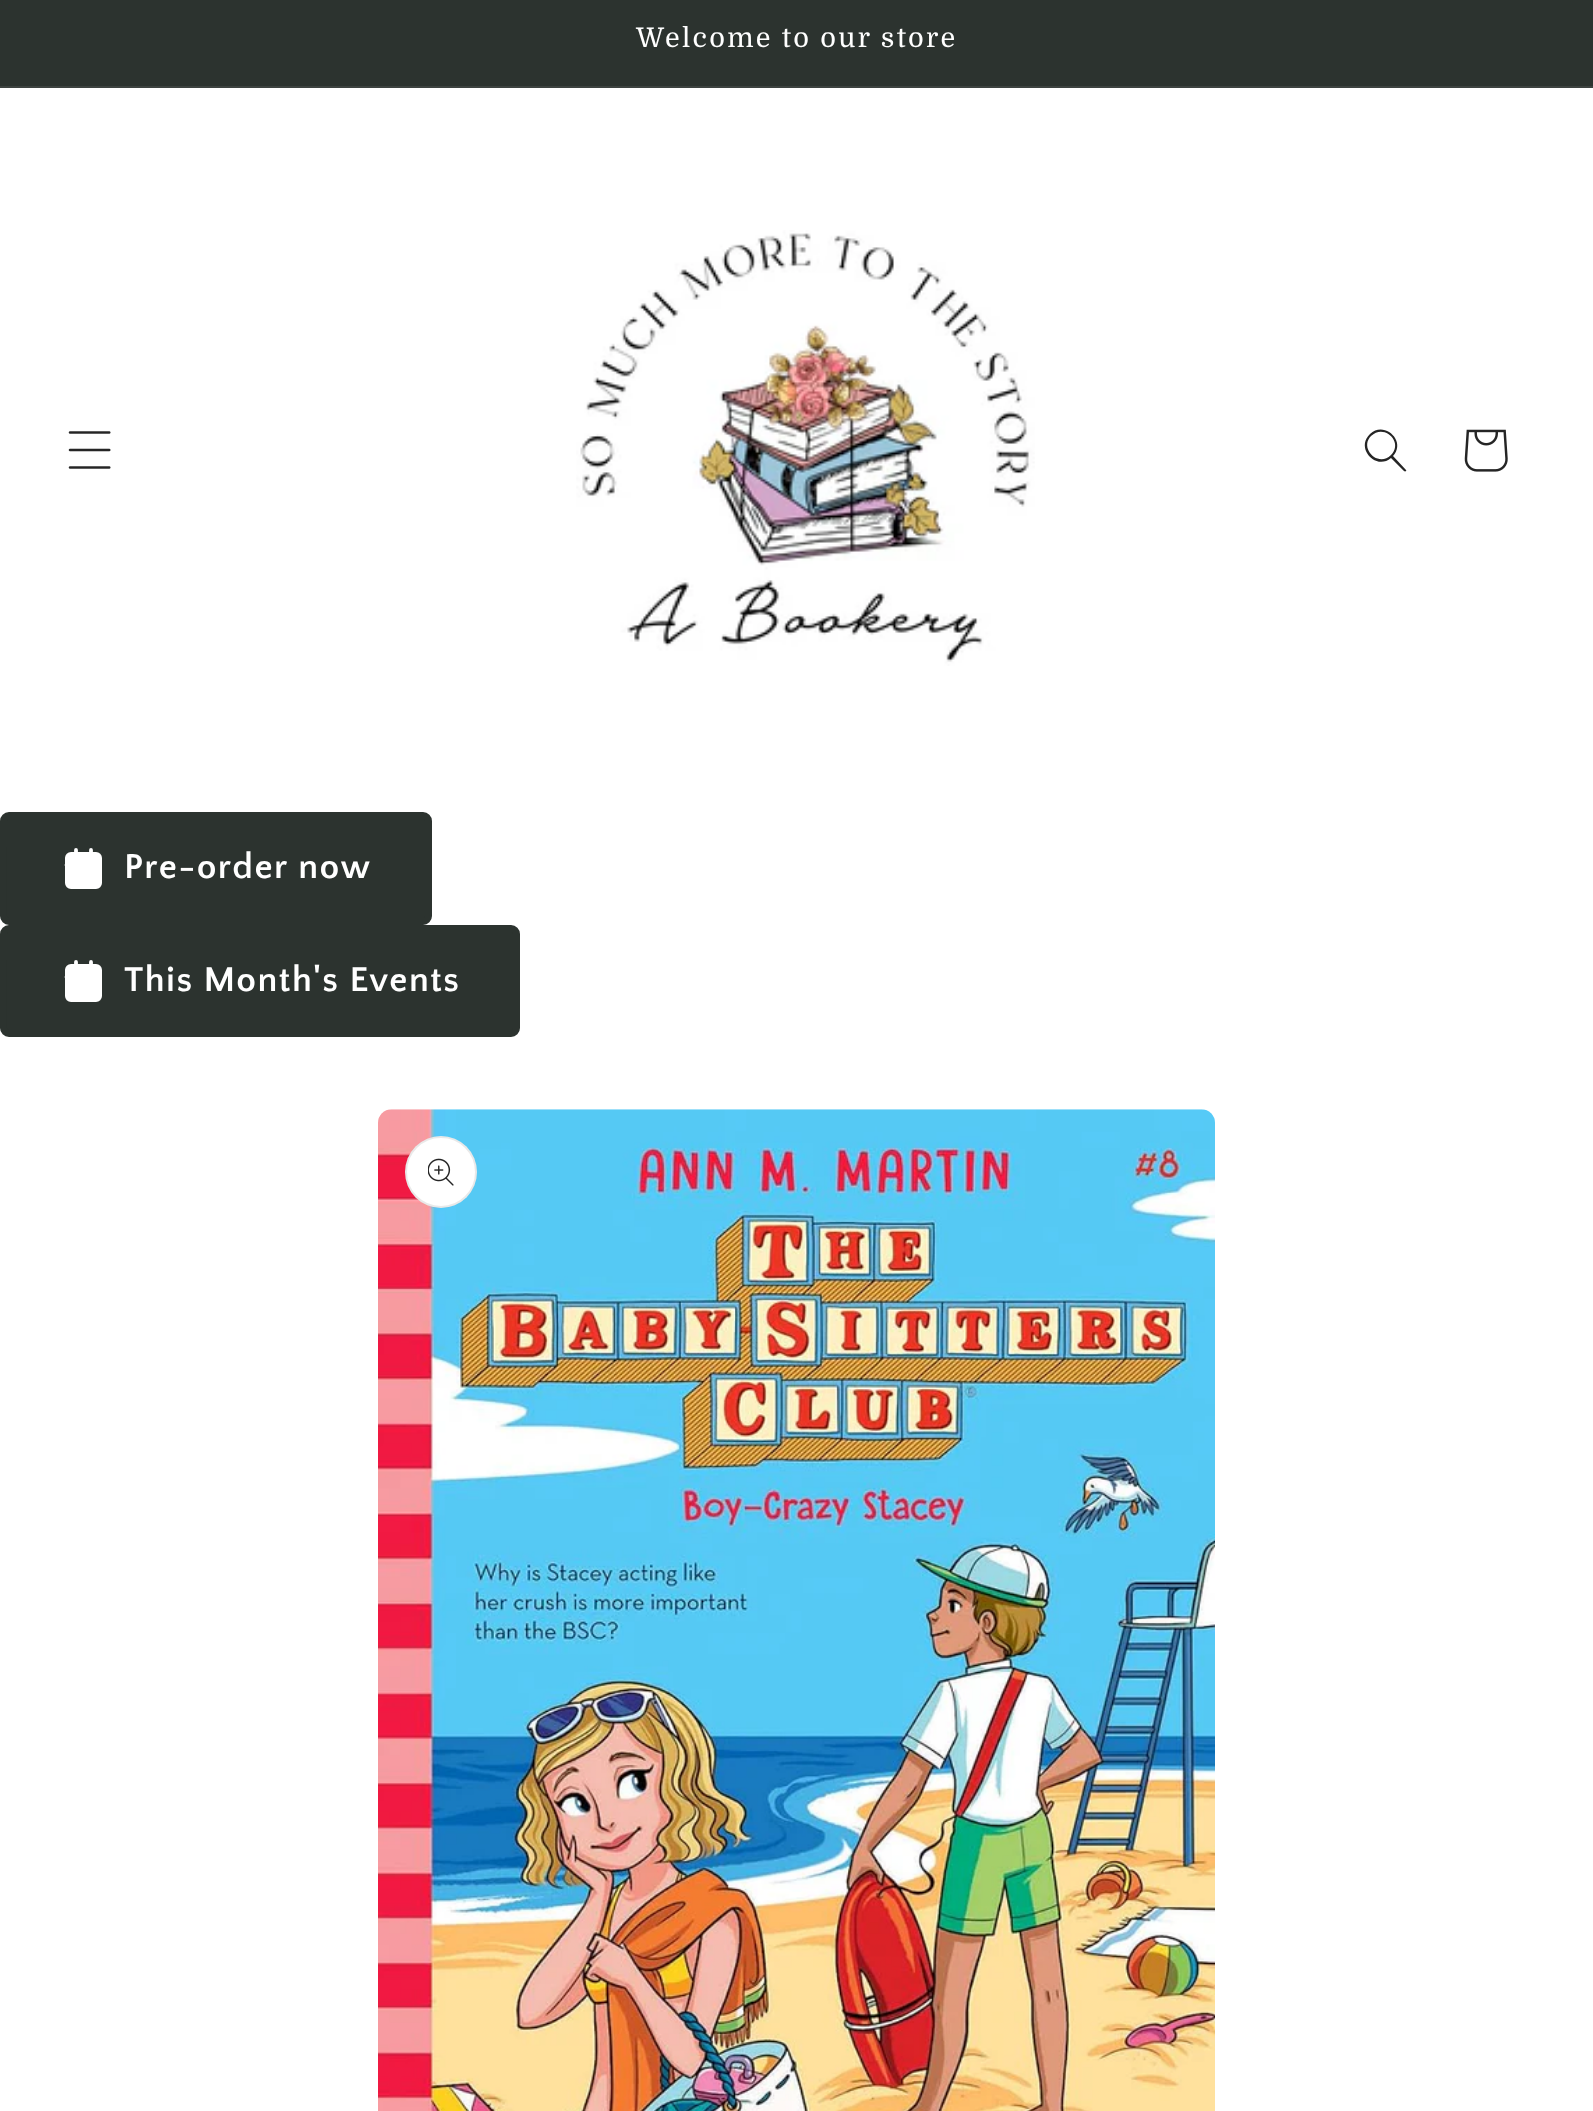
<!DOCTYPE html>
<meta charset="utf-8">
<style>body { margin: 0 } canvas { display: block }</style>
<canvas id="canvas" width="1593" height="2111"></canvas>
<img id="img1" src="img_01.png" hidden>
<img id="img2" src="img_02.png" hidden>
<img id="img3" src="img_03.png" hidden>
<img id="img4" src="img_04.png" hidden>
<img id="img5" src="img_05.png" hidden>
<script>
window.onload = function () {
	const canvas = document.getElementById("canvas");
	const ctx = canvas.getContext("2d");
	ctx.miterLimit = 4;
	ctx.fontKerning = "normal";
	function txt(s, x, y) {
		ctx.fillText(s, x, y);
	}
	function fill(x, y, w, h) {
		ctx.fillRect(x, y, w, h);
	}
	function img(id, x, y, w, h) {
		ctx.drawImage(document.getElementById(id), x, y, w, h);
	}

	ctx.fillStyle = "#FFFFFF";
	fill(0, 0, 1593, 2111);
	ctx.fillStyle = "#2C332F";
	fill(0, 0, 1593, 86);
	ctx.fillStyle = "#3D4340";
	fill(0, 86, 1593, 2);
	img("img1", 68, 431, 43, 38);
	img("img2", 576, 230, 459, 436);
	ctx.fillStyle = "#252525";
	ctx.beginPath();
	ctx.moveTo(1391, 455);
	ctx.bezierCurveTo(1378, 468, 1359, 448, 1371, 436);
	ctx.bezierCurveTo(1384, 423, 1404, 442, 1391, 455);
	ctx.moveTo(1391, 458);
	ctx.bezierCurveTo(1376, 471, 1355, 448, 1370, 434);
	ctx.bezierCurveTo(1384, 420, 1407, 441, 1393, 456);
	ctx.lineTo(1406, 470);
	ctx.bezierCurveTo(1407, 471, 1405, 472, 1404, 471);
	ctx.closePath();
	ctx.fill("evenodd");
	img("img3", 1464, 429, 44, 43);
	ctx.fillStyle = "#2C332F";
	ctx.beginPath();
	ctx.roundRect(3.5, 815.5, 425, 106, 5.5);
	ctx.fill();
	ctx.strokeStyle = "#2C332F";
	ctx.lineWidth = 7;
	ctx.stroke();
	ctx.fillStyle = "#FFFFFF";
	ctx.beginPath();
	ctx.roundRect(67, 854, 33, 33, 4);
	ctx.fill();
	ctx.strokeStyle = "#FFFFFF";
	ctx.lineWidth = 4;
	ctx.stroke();
	ctx.beginPath();
	ctx.moveTo(91, 850);
	ctx.lineTo(91, 857);
	ctx.moveTo(76, 850);
	ctx.lineTo(76, 857);
	ctx.moveTo(66.5, 865);
	ctx.lineTo(100, 865);
	ctx.lineWidth = 3.8;
	ctx.lineCap = "round";
	ctx.lineJoin = "round";
	ctx.stroke();
	ctx.fillStyle = "#2C332F";
	ctx.beginPath();
	ctx.roundRect(3.5, 928.5, 513, 105, 5.5);
	ctx.fill();
	ctx.strokeStyle = "#2C332F";
	ctx.lineWidth = 7;
	ctx.lineJoin = "miter";
	ctx.stroke();
	ctx.fillStyle = "#FFFFFF";
	ctx.beginPath();
	ctx.roundRect(67, 966, 33, 34, 4);
	ctx.fill();
	ctx.strokeStyle = "#FFFFFF";
	ctx.lineWidth = 4;
	ctx.stroke();
	ctx.beginPath();
	ctx.moveTo(91, 962);
	ctx.lineTo(91, 970);
	ctx.moveTo(76, 962);
	ctx.lineTo(76, 970);
	ctx.moveTo(66.5, 977);
	ctx.lineTo(100, 977);
	ctx.lineWidth = 3.8;
	ctx.lineJoin = "round";
	ctx.stroke();
	img("img4", 378, 1109, 837, 1002);
	ctx.beginPath();
	ctx.arc(441, 1172, 36, 0, Math.PI * 2);
	ctx.fill();
	ctx.beginPath();
	ctx.arc(441, 1172, 35, 0, Math.PI * 2);
	ctx.strokeStyle = "rgba(37, 37, 37, 0.1)";
	ctx.lineWidth = 2;
	ctx.stroke();
	img("img5", 428, 1158, 26, 28);
	ctx.letterSpacing = "2.25px";
	ctx.font = "27px Domine";
	txt("Welcome to our store", 636, 47);
	ctx.letterSpacing = "1.4px";
	ctx.font = "bold 36px Quattrocento Sans";
	txt("Pre-order now", 124, 878);
	txt("This Month's Events", 124, 991);
};
</script>
